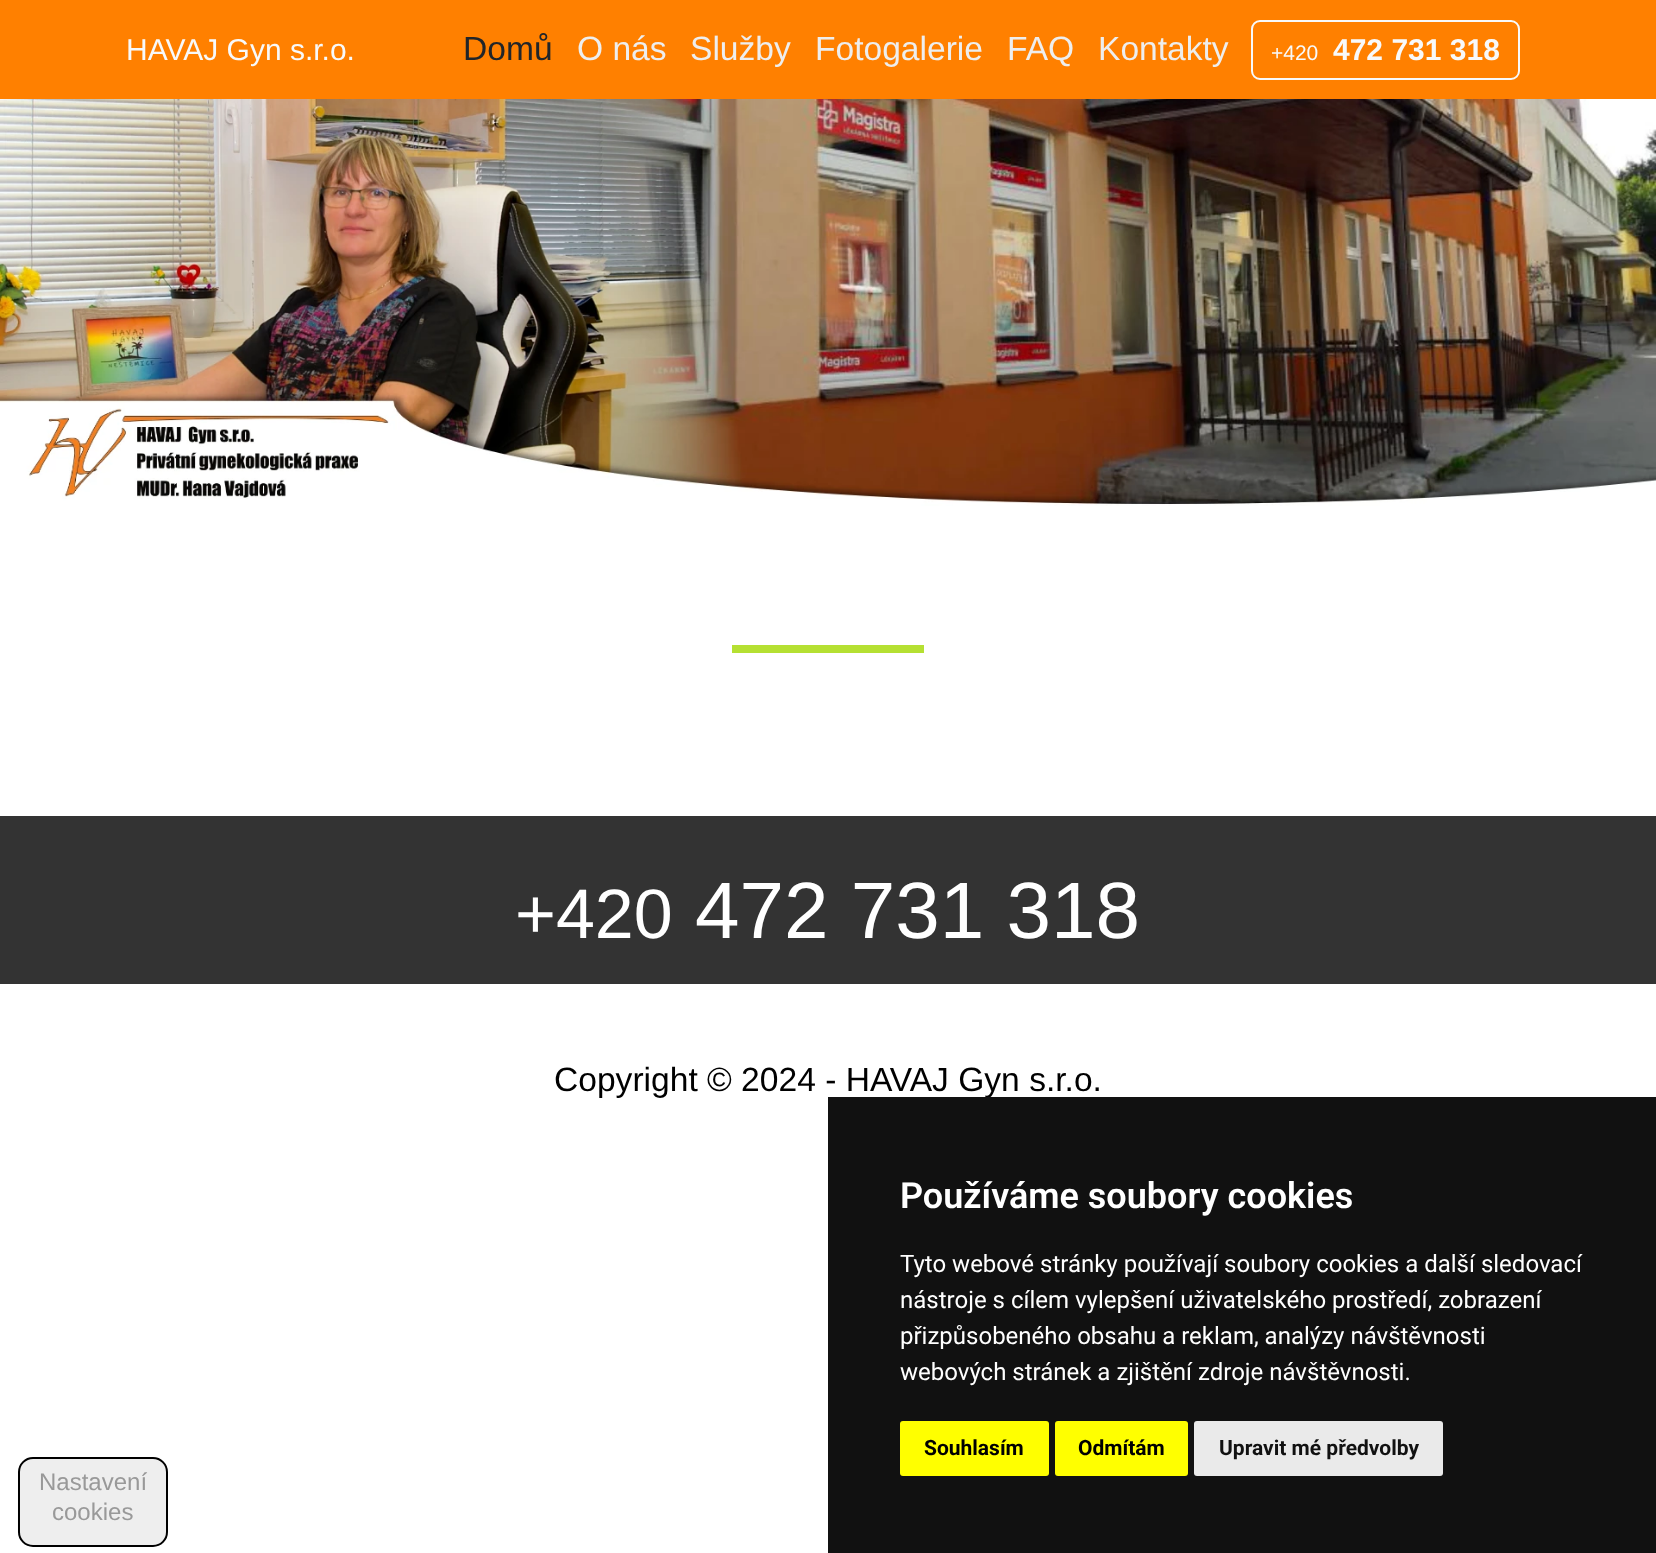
<!DOCTYPE html>
<meta charset="utf-8">
<style>body { margin: 0 } canvas { display: block }</style>
<canvas id="canvas" width="1656" height="1553"></canvas>
<img id="img1" src="img_01.png" hidden>
<script>
window.onload = function () {
	const canvas = document.getElementById("canvas");
	const ctx = canvas.getContext("2d");
	ctx.miterLimit = 4;
	ctx.fontKerning = "normal";
	function txt(s, x, y) {
		ctx.fillText(s, x, y);
	}
	function fill(x, y, w, h) {
		ctx.fillRect(x, y, w, h);
	}
	function round(x, y, w, h, r) {
		ctx.beginPath();
		ctx.roundRect(x, y, w, h, r);
		ctx.fill();
	}
	function img(id, x, y, w, h) {
		ctx.drawImage(document.getElementById(id), x, y, w, h);
	}

	ctx.fillStyle = "#FFFFFF";
	fill(0, 0, 1656, 1553);
	ctx.fillStyle = "#FF8000";
	fill(0, 0, 1656, 99);
	ctx.beginPath();
	ctx.roundRect(1252, 21, 267, 58, 8);
	ctx.strokeStyle = "#F8F9FA";
	ctx.lineWidth = 2;
	ctx.stroke();
	img("img1", 0, 99, 1656, 407);
	ctx.fillStyle = "#B5E032";
	fill(732, 645, 192, 8);
	ctx.fillStyle = "#333333";
	fill(0, 816, 1656, 168);
	ctx.fillStyle = "#EEEEEE";
	ctx.beginPath();
	ctx.roundRect(19, 1458, 148, 88, 14);
	ctx.fill();
	ctx.strokeStyle = "#000000";
	ctx.stroke();
	ctx.font = "30px Liberation Sans";
	ctx.fillStyle = "#F8F9FA";
	txt("HAVAJ Gyn s.r.o.", 126, 60);
	ctx.font = "33.6px Liberation Sans";
	ctx.fillStyle = "#212529";
	txt("Domů", 463, 60);
	ctx.fillStyle = "#EEEEEE";
	txt("O nás", 577, 60);
	txt("Služby", 690, 60);
	txt("Fotogalerie", 815, 60);
	txt("FAQ", 1007, 60);
	txt("Kontakty", 1098, 60);
	ctx.font = "21px Liberation Sans";
	ctx.fillStyle = "#F8F9FA";
	txt("+420", 1271, 60);
	ctx.font = "bold 30px Liberation Sans";
	txt("472 731 318", 1333, 60);
	ctx.font = "70px Liberation Sans";
	ctx.fillStyle = "#FFFFFF";
	txt("+420", 515, 938);
	ctx.font = "80px Liberation Sans";
	txt("472 731 318", 695, 938);
	ctx.font = "33.6px Liberation Sans";
	ctx.fillStyle = "#000000";
	txt("Copyright © 2024 - HAVAJ Gyn s.r.o.", 554, 1091);
	ctx.font = "24px Liberation Sans";
	ctx.fillStyle = "#999999";
	txt("Nastavení", 39, 1490);
	txt("cookies", 52, 1520);
	ctx.fillStyle = "#111111";
	fill(828, 1097, 828, 456);
	ctx.font = "600 36px Roboto";
	ctx.fillStyle = "#FFFFFF";
	txt("Používáme soubory cookies", 900, 1208);
	ctx.font = "24px Roboto";
	txt("Tyto webové stránky používají soubory cookies a další sledovací", 900, 1272);
	txt("nástroje s cílem vylepšení uživatelského prostředí, zobrazení", 900, 1308);
	txt("přizpůsobeného obsahu a reklam, analýzy návštěvnosti", 900, 1344);
	txt("webových stránek a zjištění zdroje návštěvnosti.", 900, 1380);
	ctx.fillStyle = "#FFFF00";
	round(900, 1421, 149, 55, 3);
	ctx.font = "bold 21px Roboto";
	ctx.fillStyle = "#000000";
	txt("Souhlasím", 924, 1455);
	ctx.fillStyle = "#FFFF00";
	round(1055, 1421, 133, 55, 3);
	ctx.fillStyle = "#000000";
	txt("Odmítám", 1078, 1455);
	ctx.fillStyle = "#EAEAEA";
	round(1194, 1421, 249, 55, 3);
	ctx.fillStyle = "#111111";
	txt("Upravit mé předvolby", 1219, 1455);
};
</script>
